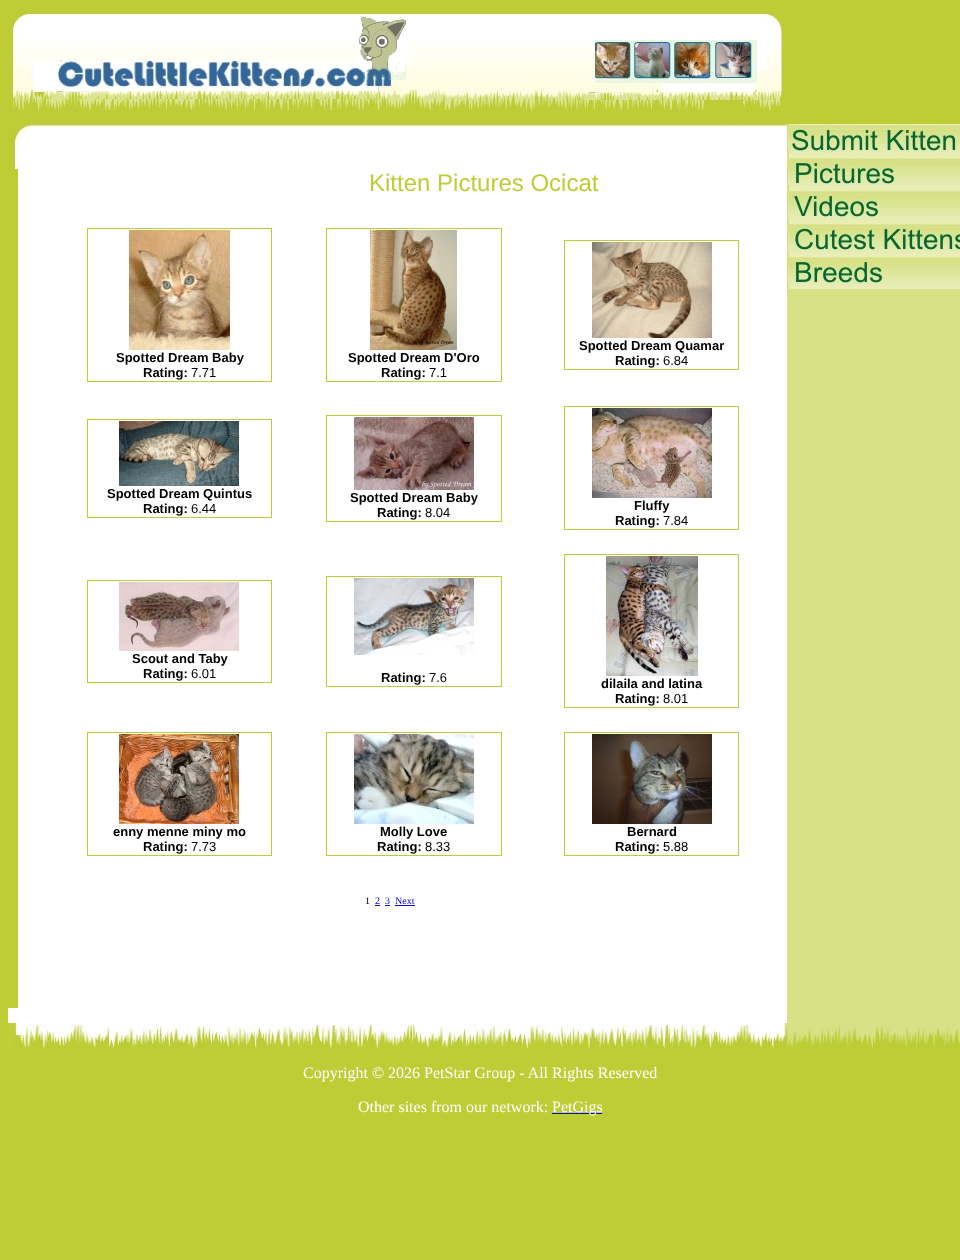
<!DOCTYPE html>
<meta charset="utf-8">
<style>body { margin: 0 } canvas { display: block }</style>
<canvas id="canvas" width="960" height="1260"></canvas>
<img id="img1" src="img_01.png" hidden>
<img id="img2" src="img_02.png" hidden>
<img id="img3" src="img_03.png" hidden>
<img id="img4" src="img_04.png" hidden>
<img id="img5" src="img_05.png" hidden>
<img id="img6" src="img_06.png" hidden>
<img id="img7" src="img_07.png" hidden>
<img id="img8" src="img_08.png" hidden>
<img id="img9" src="img_09.png" hidden>
<img id="img10" src="img_10.png" hidden>
<img id="img11" src="img_11.png" hidden>
<img id="img12" src="img_12.png" hidden>
<img id="img13" src="img_13.png" hidden>
<img id="img14" src="img_14.png" hidden>
<img id="img15" src="img_15.png" hidden>
<img id="img16" src="img_16.png" hidden>
<img id="img17" src="img_17.png" hidden>
<img id="img18" src="img_18.png" hidden>
<img id="img19" src="img_19.png" hidden>
<img id="img20" src="img_20.png" hidden>
<script>
window.onload = function () {
	const canvas = document.getElementById("canvas");
	const ctx = canvas.getContext("2d");
	ctx.miterLimit = 4;
	ctx.fontKerning = "normal";
	function txt(s, x, y) {
		ctx.fillText(s, x, y);
	}
	function fill(x, y, w, h) {
		ctx.fillRect(x, y, w, h);
	}
	function img(id, x, y, w, h) {
		ctx.drawImage(document.getElementById(id), x, y, w, h);
	}

	ctx.fillStyle = "#BECD36";
	fill(0, 0, 960, 1260);
	ctx.fillStyle = "#FFFFFF";
	fill(8, 169, 779, 854);
	img("img1", 11, 13, 774, 98);
	img("img2", 8, 114, 779, 55);
	ctx.fillStyle = "#BECD36";
	fill(8, 169, 10, 839);
	fill(87, 228, 185, 1);
	fill(271, 228, 1, 154);
	fill(87, 381, 185, 1);
	fill(87, 228, 1, 154);
	img("img3", 129, 230, 101, 120);
	fill(326, 228, 176, 1);
	fill(501, 228, 1, 154);
	fill(326, 381, 176, 1);
	fill(326, 228, 1, 154);
	img("img4", 370, 230, 87, 120);
	fill(564, 240, 175, 1);
	fill(738, 240, 1, 130);
	fill(564, 369, 175, 1);
	fill(564, 240, 1, 130);
	img("img5", 592, 242, 120, 96);
	fill(87, 419, 185, 1);
	fill(271, 419, 1, 99);
	fill(87, 517, 185, 1);
	fill(87, 419, 1, 99);
	img("img6", 119, 421, 120, 65);
	fill(326, 415, 176, 1);
	fill(501, 415, 1, 107);
	fill(326, 521, 176, 1);
	fill(326, 415, 1, 107);
	img("img7", 354, 417, 120, 73);
	fill(564, 406, 175, 1);
	fill(738, 406, 1, 124);
	fill(564, 529, 175, 1);
	fill(564, 406, 1, 124);
	img("img8", 592, 408, 120, 90);
	fill(87, 580, 185, 1);
	fill(271, 580, 1, 103);
	fill(87, 682, 185, 1);
	fill(87, 580, 1, 103);
	img("img9", 119, 582, 120, 69);
	fill(326, 576, 176, 1);
	fill(501, 576, 1, 111);
	fill(326, 686, 176, 1);
	fill(326, 576, 1, 111);
	img("img10", 354, 578, 120, 77);
	fill(564, 554, 175, 1);
	fill(738, 554, 1, 154);
	fill(564, 707, 175, 1);
	fill(564, 554, 1, 154);
	img("img11", 606, 556, 92, 120);
	fill(87, 732, 185, 1);
	fill(271, 732, 1, 124);
	fill(87, 855, 185, 1);
	fill(87, 732, 1, 124);
	img("img12", 119, 734, 120, 90);
	fill(326, 732, 176, 1);
	fill(501, 732, 1, 124);
	fill(326, 855, 176, 1);
	fill(326, 732, 1, 124);
	img("img13", 354, 734, 120, 90);
	fill(564, 732, 175, 1);
	fill(738, 732, 1, 124);
	fill(564, 855, 175, 1);
	fill(564, 732, 1, 124);
	img("img14", 592, 734, 120, 90);
	ctx.fillStyle = "#0000EE";
	fill(375, 905, 5, 1);
	fill(385, 905, 5, 1);
	fill(395, 905, 20, 1);
	ctx.fillStyle = "#D8E186";
	fill(787, 289, 173, 734);
	img("img15", 787, 124, 173, 33);
	img("img16", 787, 157, 173, 33);
	img("img17", 787, 190, 173, 33);
	img("img18", 787, 223, 173, 33);
	img("img19", 787, 256, 173, 33);
	img("img20", 8, 1023, 952, 25);
	ctx.fillStyle = "#0000EE";
	fill(552, 1113, 50, 1);
	ctx.font = "24px Liberation Sans";
	ctx.fillStyle = "#BECD36";
	txt("Kitten Pictures Ocicat", 369, 191);
	ctx.font = "bold 13px Liberation Sans";
	ctx.fillStyle = "#000000";
	txt("Spotted Dream Baby", 116, 362);
	txt("Rating:", 143, 377);
	ctx.font = "13px Liberation Sans";
	txt("7.71", 191, 377);
	ctx.font = "bold 13px Liberation Sans";
	txt("Spotted Dream D'Oro", 348, 362);
	txt("Rating:", 381, 377);
	ctx.font = "13px Liberation Sans";
	txt("7.1", 429, 377);
	ctx.font = "bold 13px Liberation Sans";
	txt("Spotted Dream Quamar", 579, 350);
	txt("Rating:", 615, 365);
	ctx.font = "13px Liberation Sans";
	txt("6.84", 663, 365);
	ctx.font = "bold 13px Liberation Sans";
	txt("Spotted Dream Quintus", 107, 498);
	txt("Rating:", 143, 513);
	ctx.font = "13px Liberation Sans";
	txt("6.44", 191, 513);
	ctx.font = "bold 13px Liberation Sans";
	txt("Spotted Dream Baby", 350, 502);
	txt("Rating:", 377, 517);
	ctx.font = "13px Liberation Sans";
	txt("8.04", 425, 517);
	ctx.font = "bold 13px Liberation Sans";
	txt("Fluffy", 634, 510);
	txt("Rating:", 615, 525);
	ctx.font = "13px Liberation Sans";
	txt("7.84", 663, 525);
	ctx.font = "bold 13px Liberation Sans";
	txt("Scout and Taby", 132, 663);
	txt("Rating:", 143, 678);
	ctx.font = "13px Liberation Sans";
	txt("6.01", 191, 678);
	ctx.font = "bold 13px Liberation Sans";
	txt("Rating:", 381, 682);
	ctx.font = "13px Liberation Sans";
	txt("7.6", 429, 682);
	ctx.font = "bold 13px Liberation Sans";
	txt("dilaila and latina", 601, 688);
	txt("Rating:", 615, 703);
	ctx.font = "13px Liberation Sans";
	txt("8.01", 663, 703);
	ctx.font = "bold 13px Liberation Sans";
	txt("enny menne miny mo", 113, 836);
	txt("Rating:", 143, 851);
	ctx.font = "13px Liberation Sans";
	txt("7.73", 191, 851);
	ctx.font = "bold 13px Liberation Sans";
	txt("Molly Love", 380, 836);
	txt("Rating:", 377, 851);
	ctx.font = "13px Liberation Sans";
	txt("8.33", 425, 851);
	ctx.font = "bold 13px Liberation Sans";
	txt("Bernard", 627, 836);
	txt("Rating:", 615, 851);
	ctx.font = "13px Liberation Sans";
	txt("5.88", 663, 851);
	ctx.font = "10px Liberation Serif";
	txt("1", 365, 904);
	ctx.fillStyle = "#0000EE";
	txt("2", 375, 904);
	txt("3", 385, 904);
	txt("Next", 395, 904);
	ctx.font = "16px Liberation Serif";
	ctx.fillStyle = "#FFFFFF";
	txt("Copyright © 2026 PetStar Group - All Rights Reserved", 303, 1078);
	txt("Other sites from our network:", 358, 1112);
	txt("PetGigs", 552, 1112);
};
</script>
